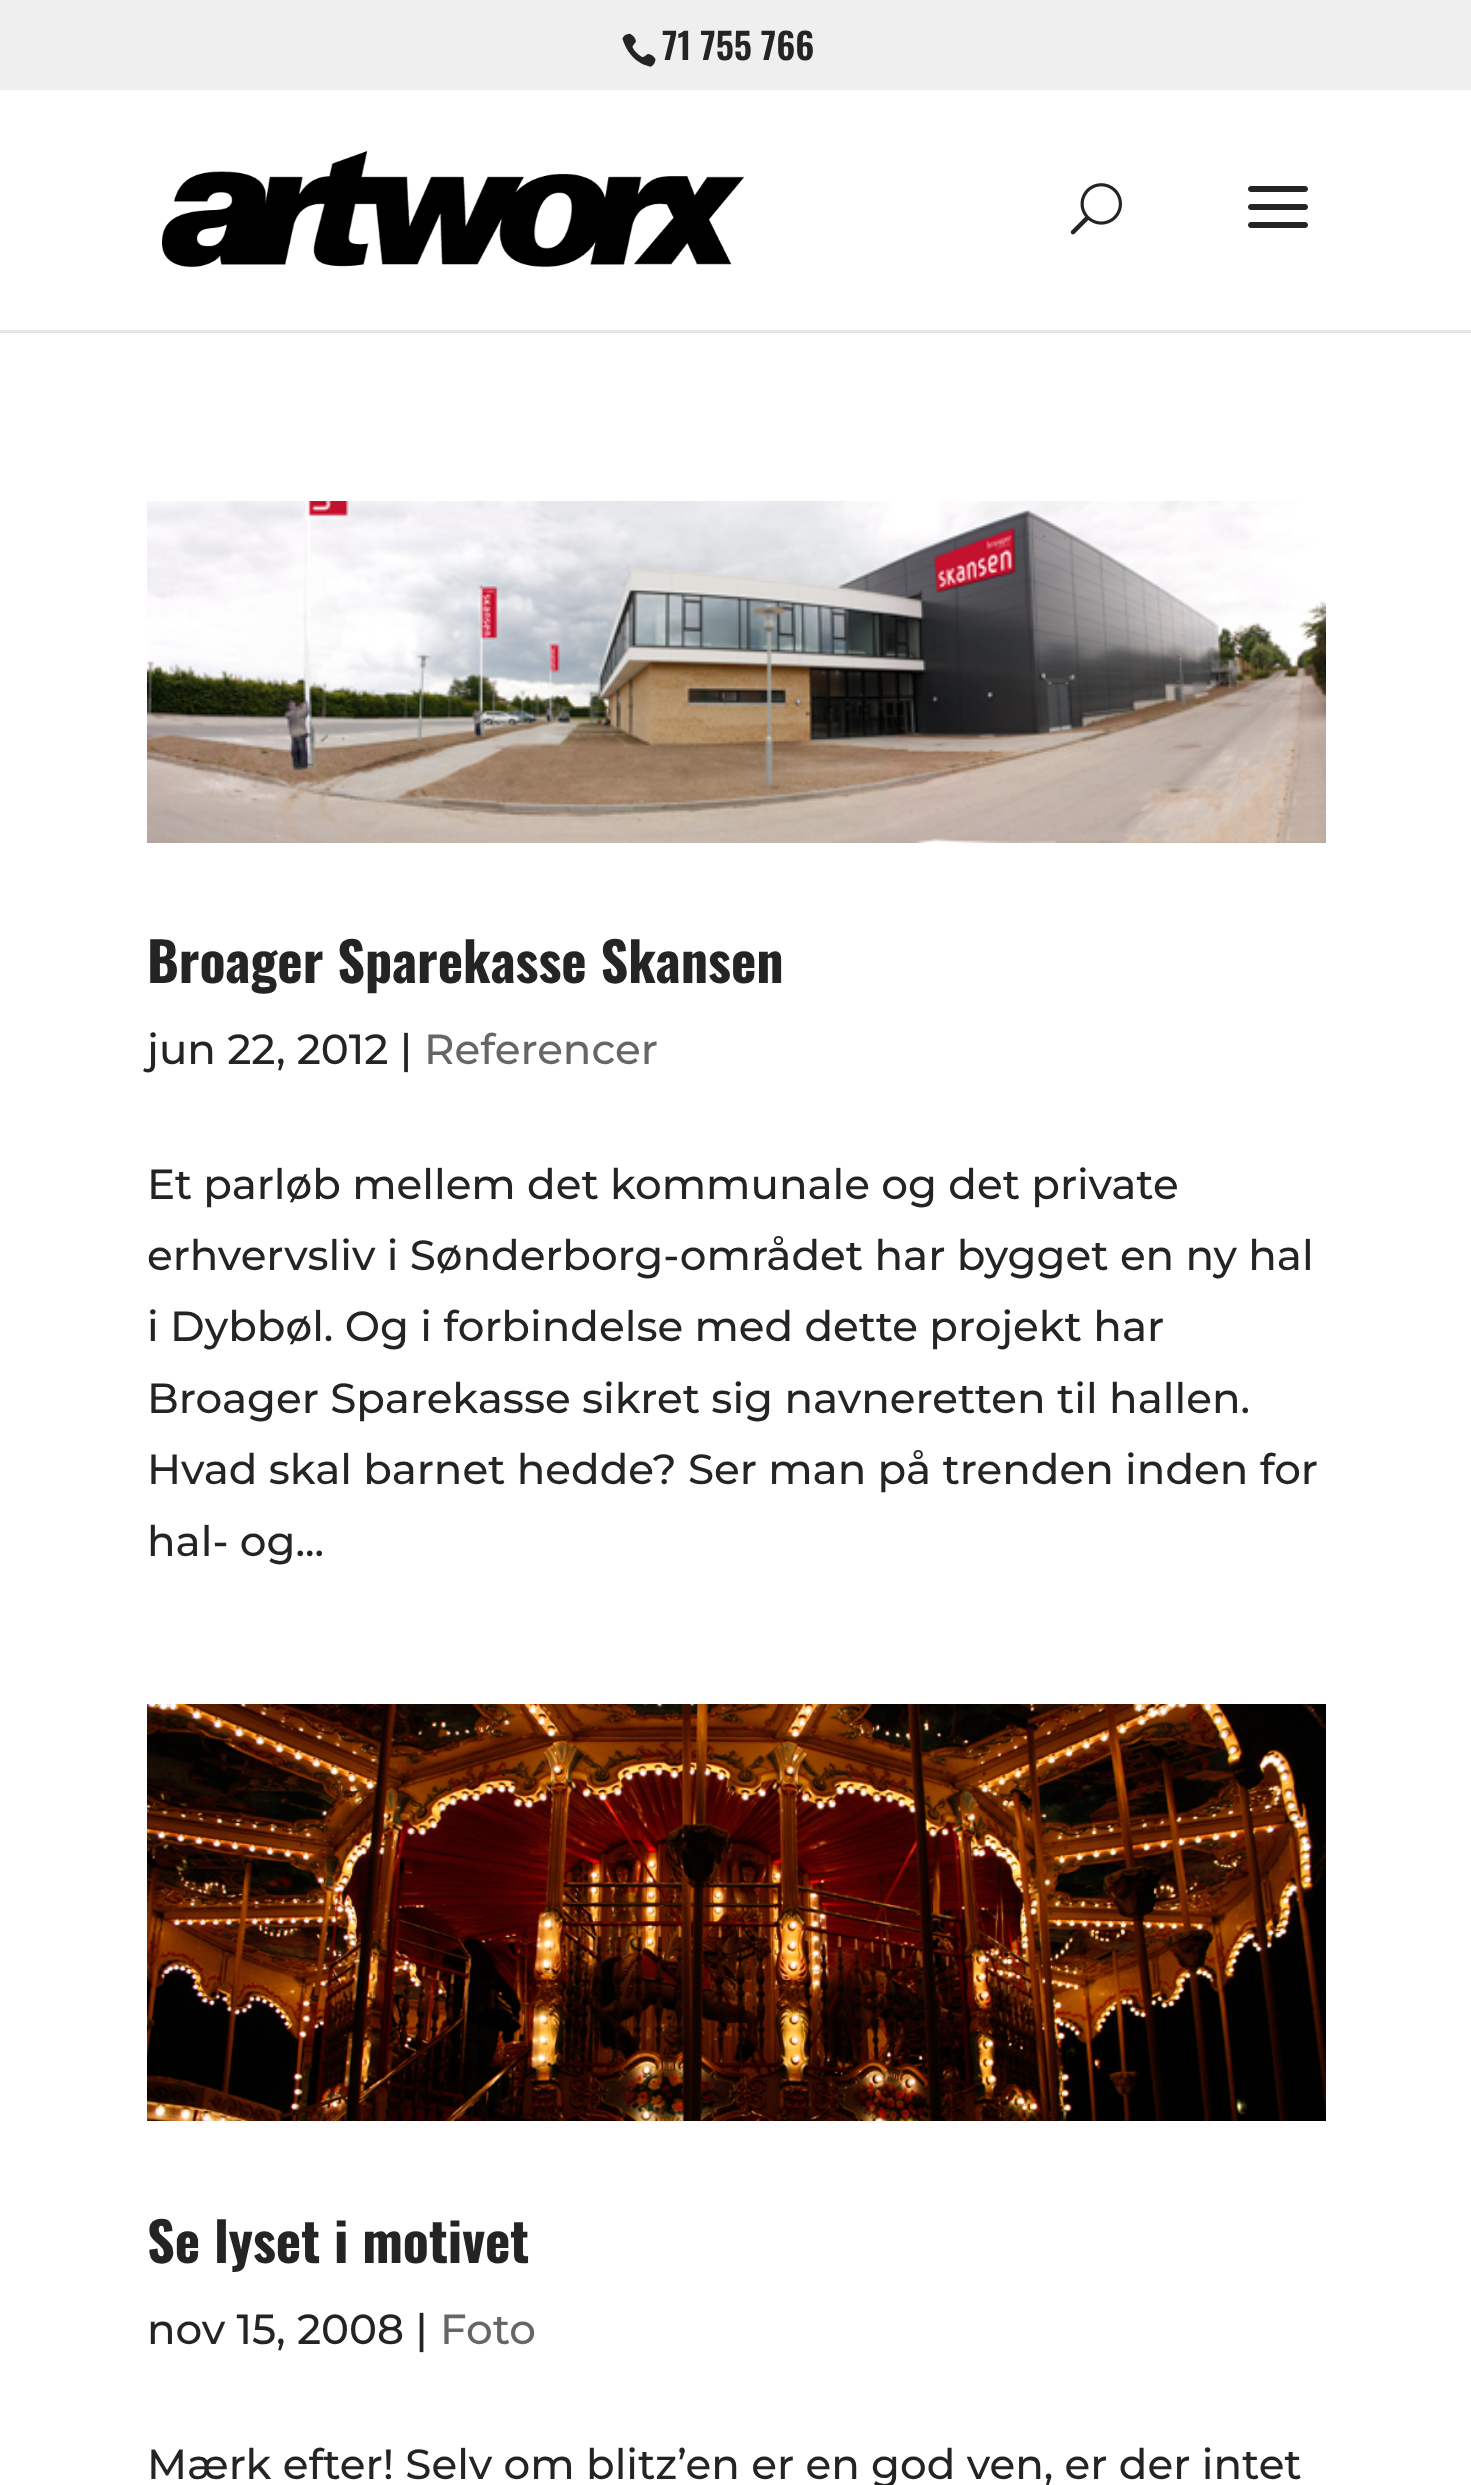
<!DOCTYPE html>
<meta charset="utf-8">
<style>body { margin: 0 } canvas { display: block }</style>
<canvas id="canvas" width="1471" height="2485"></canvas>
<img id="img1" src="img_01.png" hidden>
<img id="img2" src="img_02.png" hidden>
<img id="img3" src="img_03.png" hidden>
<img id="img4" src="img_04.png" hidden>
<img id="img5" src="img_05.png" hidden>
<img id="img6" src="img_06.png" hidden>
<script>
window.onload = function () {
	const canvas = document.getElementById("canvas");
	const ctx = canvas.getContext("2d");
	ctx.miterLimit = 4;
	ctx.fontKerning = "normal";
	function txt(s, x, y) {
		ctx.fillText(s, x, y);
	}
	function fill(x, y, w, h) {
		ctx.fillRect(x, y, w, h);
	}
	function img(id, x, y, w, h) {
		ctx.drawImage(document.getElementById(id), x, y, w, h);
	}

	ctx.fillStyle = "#FFFFFF";
	fill(0, 0, 1471, 2485);
	ctx.fillStyle = "#EFEFEF";
	fill(0, 0, 1471, 90);
	img("img1", 622, 33, 34, 34);
	ctx.fillStyle = "#E6E6E6";
	fill(0, 330, 1471, 3);
	img("img2", 162, 150, 582, 118);
	img("img3", 1070, 183, 52, 52);
	img("img4", 1248, 186, 60, 42);
	img("img5", 147, 501, 1179, 342);
	img("img6", 147, 1704, 1179, 417);
	ctx.font = "600 36px Oswald";
	ctx.fillStyle = "#242424";
	txt("71 755 766", 662, 60);
	ctx.font = "bold 54px Oswald";
	txt("Broager Sparekasse Skansen", 147, 983);
	ctx.font = "500 42px Montserrat";
	txt("jun 22, 2012 |", 147, 1064);
	ctx.fillStyle = "#666666";
	txt("Referencer", 424, 1064);
	ctx.fillStyle = "#242424";
	txt("Et parløb mellem det kommunale og det private", 147, 1199);
	txt("erhvervsliv i Sønderborg-området har bygget en ny hal", 147, 1270);
	txt("i Dybbøl. Og i forbindelse med dette projekt har", 147, 1341);
	txt("Broager Sparekasse sikret sig navneretten til hallen.", 147, 1413);
	txt("Hvad skal barnet hedde? Ser man på trenden inden for", 147, 1484);
	txt("hal- og...", 147, 1556);
	ctx.font = "bold 54px Oswald";
	txt("Se lyset i motivet", 147, 2263);
	ctx.font = "500 42px Montserrat";
	txt("nov 15, 2008 |", 147, 2344);
	ctx.fillStyle = "#666666";
	txt("Foto", 440, 2344);
	ctx.fillStyle = "#242424";
	txt("Mærk efter! Selv om blitz’en er en god ven, er der intet", 147, 2479);
};
</script>
